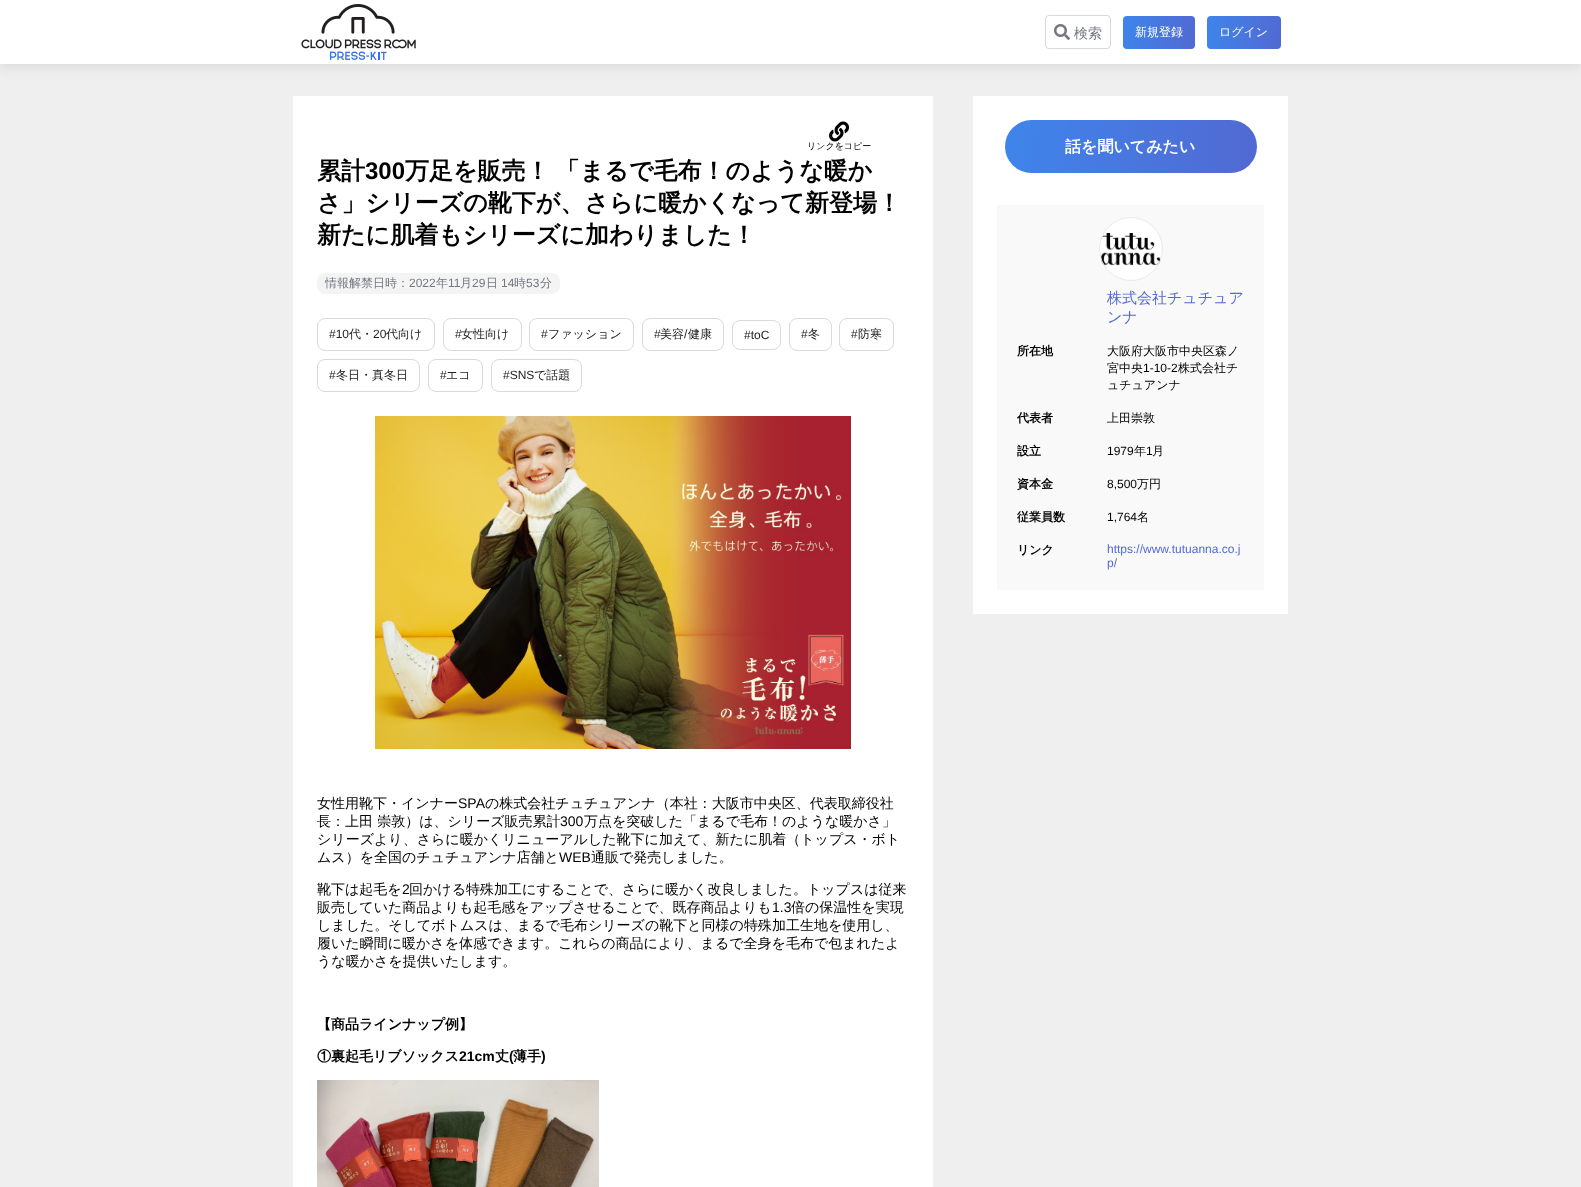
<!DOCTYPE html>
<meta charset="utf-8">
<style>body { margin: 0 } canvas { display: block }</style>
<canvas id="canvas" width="1581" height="1187"></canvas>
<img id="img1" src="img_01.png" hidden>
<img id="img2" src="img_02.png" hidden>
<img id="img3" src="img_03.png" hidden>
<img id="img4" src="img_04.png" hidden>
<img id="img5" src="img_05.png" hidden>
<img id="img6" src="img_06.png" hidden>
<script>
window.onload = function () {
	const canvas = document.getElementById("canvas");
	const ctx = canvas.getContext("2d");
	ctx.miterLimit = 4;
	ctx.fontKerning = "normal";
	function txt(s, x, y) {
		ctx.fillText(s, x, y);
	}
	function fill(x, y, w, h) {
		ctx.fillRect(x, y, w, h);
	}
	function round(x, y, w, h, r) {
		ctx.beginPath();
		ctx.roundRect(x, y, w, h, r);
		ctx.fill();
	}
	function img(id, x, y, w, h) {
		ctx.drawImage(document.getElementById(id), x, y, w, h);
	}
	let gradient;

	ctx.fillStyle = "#EFEFEF";
	fill(0, 0, 1581, 1187);
	ctx.fillStyle = "rgba(0, 0, 0, 0.08)";
	ctx.filter = "blur(6px)";
	ctx.beginPath();
	ctx.rect(0, 4, 1581, 64);
	ctx.fill();
	ctx.filter = "none";
	ctx.fillStyle = "#FFFFFF";
	fill(0, 0, 1581, 64);
	img("img1", 301, 4, 115, 56);
	ctx.beginPath();
	ctx.roundRect(1045.5, 15.5, 65, 33, 3.5);
	ctx.strokeStyle = "#D9D9D9";
	ctx.stroke();
	img("img2", 1054, 24, 16, 16);
	gradient = ctx.createLinearGradient(1196, 37, 1122, 28);
	gradient.addColorStop(0, "#5269D2");
	gradient.addColorStop(1, "#3E85EB");
	ctx.fillStyle = gradient;
	round(1123, 16, 72, 33, 4);
	gradient = ctx.createLinearGradient(1282, 37, 1206, 28);
	gradient.addColorStop(0, "#5269D2");
	gradient.addColorStop(1, "#3E85EB");
	ctx.fillStyle = gradient;
	round(1207, 16, 74, 33, 4);
	ctx.fillStyle = "#FFFFFF";
	fill(293, 96, 640, 1091);
	img("img3", 829, 121, 20, 21);
	ctx.fillStyle = "#F4F4F4";
	round(317, 273, 243, 21, 8);
	ctx.beginPath();
	ctx.roundRect(317.5, 318.5, 117, 32, 7.5);
	ctx.stroke();
	ctx.beginPath();
	ctx.roundRect(443.5, 318.5, 78, 32, 7.5);
	ctx.stroke();
	ctx.beginPath();
	ctx.roundRect(529.5, 318.5, 104, 32, 7.5);
	ctx.stroke();
	ctx.beginPath();
	ctx.roundRect(642.5, 318.5, 81, 32, 7.5);
	ctx.stroke();
	ctx.beginPath();
	ctx.roundRect(732.5, 320.5, 48, 29, 7.5);
	ctx.stroke();
	ctx.beginPath();
	ctx.roundRect(789.5, 318.5, 42, 32, 7.5);
	ctx.stroke();
	ctx.beginPath();
	ctx.roundRect(839.5, 318.5, 54, 32, 7.5);
	ctx.stroke();
	ctx.beginPath();
	ctx.roundRect(317.5, 359.5, 102, 32, 7.5);
	ctx.stroke();
	ctx.beginPath();
	ctx.roundRect(428.5, 359.5, 54, 32, 7.5);
	ctx.stroke();
	ctx.beginPath();
	ctx.roundRect(491.5, 359.5, 90, 32, 7.5);
	ctx.stroke();
	img("img4", 375, 416, 476, 333);
	img("img5", 317, 1080, 282, 107);
	ctx.fillStyle = "#FFFFFF";
	fill(973, 96, 315, 518);
	gradient = ctx.createLinearGradient(1258, 161, 1004, 132);
	gradient.addColorStop(0, "#5269D2");
	gradient.addColorStop(1, "#3E85EB");
	ctx.fillStyle = gradient;
	round(1005, 120, 252, 53, 26.5);
	ctx.fillStyle = "#F9F9F9";
	fill(997, 205, 267, 385);
	ctx.fillStyle = "#FFFFFF";
	ctx.beginPath();
	ctx.arc(1131, 249, 32, 0, Math.PI * 2);
	ctx.fill();
	img("img6", 1100, 233, 61, 33);
	ctx.beginPath();
	ctx.arc(1131, 249, 31.5, 0, Math.PI * 2);
	ctx.strokeStyle = "#E9E9E9";
	ctx.stroke();
	ctx.font = "500 14px WenQuanYi Zen Hei";
	ctx.fillStyle = "#757782";
	txt("検索", 1074, 38);
	ctx.font = "500 12px WenQuanYi Zen Hei";
	ctx.fillStyle = "#FFFFFF";
	txt("新規登録", 1135, 36);
	txt("ログイン", 1219, 36);
	ctx.font = "500 9px WenQuanYi Zen Hei";
	ctx.fillStyle = "#000000";
	txt("リンクをコピー", 807, 149);
	ctx.font = "bold 24px WenQuanYi Zen Hei";
	txt("累計", 317, 179);
	ctx.font = "bold 24px Liberation Sans";
	txt("300", 365, 179);
	ctx.wordSpacing = "-1px";
	ctx.font = "bold 24px WenQuanYi Zen Hei";
	txt("万足を販売！ 「まるで毛布！のような暖か", 405, 179);
	ctx.wordSpacing = "0px";
	txt("さ」シリーズの靴下が、さらに暖かくなって新登場！", 317, 211);
	txt("新たに肌着もシリーズに加わりました！", 317, 243);
	ctx.font = "500 12px WenQuanYi Zen Hei";
	ctx.fillStyle = "#757782";
	txt("情報解禁日時：", 325, 287);
	ctx.font = "12px Liberation Sans";
	txt("2022", 409, 287);
	ctx.font = "500 12px WenQuanYi Zen Hei";
	txt("年", 436, 287);
	ctx.font = "12px Liberation Sans";
	txt("11", 448, 287);
	ctx.font = "500 12px WenQuanYi Zen Hei";
	txt("月", 460, 287);
	ctx.font = "12px Liberation Sans";
	txt("29", 472, 287);
	ctx.font = "500 12px WenQuanYi Zen Hei";
	txt("日", 486, 287);
	ctx.font = "12px Liberation Sans";
	txt("14", 501, 287);
	ctx.font = "500 12px WenQuanYi Zen Hei";
	txt("時", 514, 287);
	ctx.font = "12px Liberation Sans";
	txt("53", 526, 287);
	ctx.font = "500 12px WenQuanYi Zen Hei";
	txt("分", 540, 287);
	ctx.font = "12px Liberation Sans";
	ctx.fillStyle = "#222222";
	txt("#10", 329, 338);
	ctx.font = "500 12px WenQuanYi Zen Hei";
	txt("代・", 349, 338);
	ctx.font = "12px Liberation Sans";
	txt("20", 373, 338);
	ctx.font = "500 12px WenQuanYi Zen Hei";
	txt("代向け", 386, 338);
	ctx.font = "12px Liberation Sans";
	txt("#", 455, 338);
	ctx.font = "500 12px WenQuanYi Zen Hei";
	txt("女性向け", 461, 338);
	ctx.font = "12px Liberation Sans";
	txt("#", 541, 338);
	ctx.font = "500 12px WenQuanYi Zen Hei";
	txt("ファッション", 548, 338);
	ctx.font = "12px Liberation Sans";
	txt("#", 654, 338);
	ctx.font = "500 12px WenQuanYi Zen Hei";
	txt("美容", 660, 338);
	ctx.font = "12px Liberation Sans";
	txt("/", 684, 338);
	ctx.font = "500 12px WenQuanYi Zen Hei";
	txt("健康", 688, 338);
	ctx.font = "12px Liberation Sans";
	txt("#toC", 744, 339);
	txt("#", 801, 338);
	ctx.font = "500 12px WenQuanYi Zen Hei";
	txt("冬", 808, 338);
	ctx.font = "12px Liberation Sans";
	txt("#", 851, 338);
	ctx.font = "500 12px WenQuanYi Zen Hei";
	txt("防寒", 858, 338);
	ctx.font = "12px Liberation Sans";
	txt("#", 329, 379);
	ctx.font = "500 12px WenQuanYi Zen Hei";
	txt("冬日・真冬日", 336, 379);
	ctx.font = "12px Liberation Sans";
	txt("#", 440, 379);
	ctx.font = "500 12px WenQuanYi Zen Hei";
	txt("エコ", 446, 379);
	ctx.font = "12px Liberation Sans";
	txt("#SNS", 503, 379);
	ctx.font = "500 12px WenQuanYi Zen Hei";
	txt("で話題", 534, 379);
	ctx.font = "500 14px WenQuanYi Zen Hei";
	ctx.fillStyle = "#000000";
	txt("女性用靴下・インナー", 317, 808);
	ctx.font = "14px Liberation Sans";
	txt("SPA", 458, 808);
	ctx.font = "500 14px WenQuanYi Zen Hei";
	txt("の株式会社チュチュアンナ（本社：大阪市中央区、代表取締役社", 485, 808);
	txt("長：上田 崇敦）は、シリーズ販売累計", 317, 826);
	ctx.font = "14px Liberation Sans";
	txt("300", 560, 826);
	ctx.font = "500 14px WenQuanYi Zen Hei";
	txt("万点を突破した「まるで毛布！のような暖かさ」", 584, 826);
	txt("シリーズより、さらに暖かくリニューアルした靴下に加えて、新たに肌着（トップス・ボト", 317, 844);
	txt("ムス）を全国のチュチュアンナ店舗と", 317, 862);
	ctx.font = "14px Liberation Sans";
	txt("WEB", 559, 862);
	ctx.font = "500 14px WenQuanYi Zen Hei";
	txt("通販で発売しました。", 591, 862);
	txt("靴下は起毛を", 317, 894);
	ctx.font = "14px Liberation Sans";
	txt("2", 402, 894);
	ctx.font = "500 14px WenQuanYi Zen Hei";
	txt("回かける特殊加工にすることで、さらに暖かく改良しました。トップスは従来", 409, 894);
	txt("販売していた商品よりも起毛感をアップさせることで、既存商品よりも", 317, 912);
	ctx.font = "14px Liberation Sans";
	txt("1.3", 772, 912);
	ctx.font = "500 14px WenQuanYi Zen Hei";
	txt("倍の保温性を実現", 791, 912);
	txt("しました。そしてボトムスは、まるで毛布シリーズの靴下と同様の特殊加工生地を使用し、", 317, 930);
	txt("履いた瞬間に暖かさを体感できます。これらの商品により、まるで全身を毛布で包まれたよ", 317, 948);
	txt("うな暖かさを提供いたします。", 317, 966);
	ctx.font = "bold 14px WenQuanYi Zen Hei";
	txt("【商品ラインナップ例】", 317, 1029);
	txt("①裏起毛リブソックス", 317, 1061);
	ctx.font = "bold 14px Liberation Sans";
	txt("21cm", 459, 1061);
	ctx.font = "bold 14px WenQuanYi Zen Hei";
	txt("丈", 495, 1061);
	ctx.font = "bold 14px Liberation Sans";
	txt("(", 509, 1061);
	ctx.font = "bold 14px WenQuanYi Zen Hei";
	txt("薄手", 513, 1061);
	ctx.font = "bold 14px Liberation Sans";
	txt(")", 541, 1061);
	ctx.font = "bold 16px WenQuanYi Zen Hei";
	ctx.fillStyle = "#FFFFFF";
	txt("話を聞いてみたい", 1065, 152);
	ctx.font = "500 15px WenQuanYi Zen Hei";
	ctx.fillStyle = "#5269D2";
	txt("株式会社チュチュア", 1107, 303);
	txt("ンナ", 1107, 322);
	ctx.font = "bold 12px WenQuanYi Zen Hei";
	ctx.fillStyle = "#000000";
	txt("所在地", 1017, 355);
	ctx.font = "500 12px WenQuanYi Zen Hei";
	txt("大阪府大阪市中央区森ノ", 1107, 355);
	txt("宮中央", 1107, 372);
	ctx.font = "12px Liberation Sans";
	txt("1-10-2", 1143, 372);
	ctx.font = "500 12px WenQuanYi Zen Hei";
	txt("株式会社チ", 1178, 372);
	txt("ュチュアンナ", 1107, 389);
	ctx.font = "bold 12px WenQuanYi Zen Hei";
	txt("代表者", 1017, 422);
	ctx.font = "500 12px WenQuanYi Zen Hei";
	txt("上田崇敦", 1107, 422);
	ctx.font = "bold 12px WenQuanYi Zen Hei";
	txt("設立", 1017, 455);
	ctx.font = "12px Liberation Sans";
	txt("1979", 1107, 455);
	ctx.font = "500 12px WenQuanYi Zen Hei";
	txt("年", 1134, 455);
	ctx.font = "12px Liberation Sans";
	txt("1", 1146, 455);
	ctx.font = "500 12px WenQuanYi Zen Hei";
	txt("月", 1152, 455);
	ctx.font = "bold 12px WenQuanYi Zen Hei";
	txt("資本金", 1017, 488);
	ctx.font = "12px Liberation Sans";
	txt("8,500", 1107, 488);
	ctx.font = "500 12px WenQuanYi Zen Hei";
	txt("万円", 1137, 488);
	ctx.font = "bold 12px WenQuanYi Zen Hei";
	txt("従業員数", 1017, 521);
	ctx.font = "12px Liberation Sans";
	txt("1,764", 1107, 521);
	ctx.font = "500 12px WenQuanYi Zen Hei";
	txt("名", 1137, 521);
	ctx.font = "bold 12px WenQuanYi Zen Hei";
	txt("リンク", 1017, 554);
	ctx.font = "12px Liberation Sans";
	ctx.fillStyle = "#5269D2";
	txt("https://www.tutuanna.co.j", 1107, 553);
	txt("p/", 1107, 567);
};
</script>
